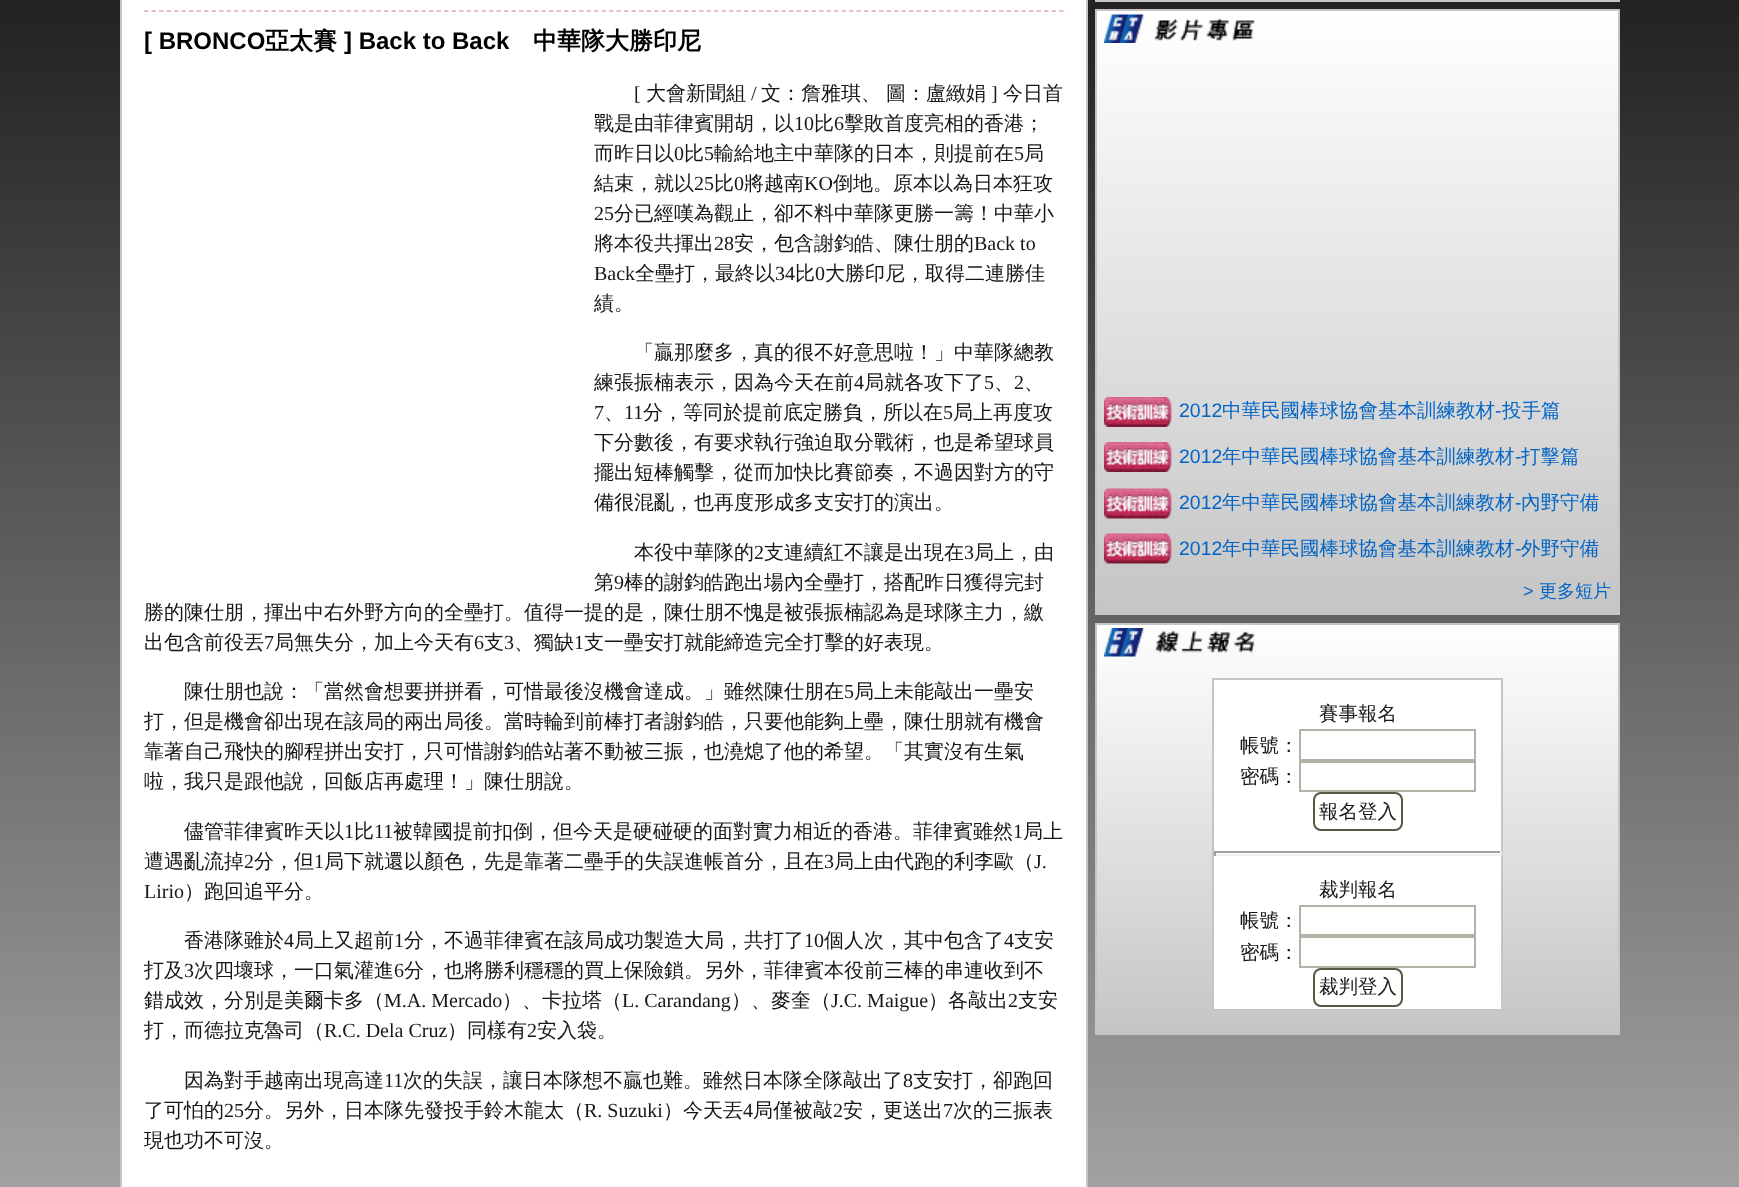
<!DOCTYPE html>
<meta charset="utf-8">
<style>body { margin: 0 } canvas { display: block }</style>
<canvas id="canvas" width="1739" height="1187"></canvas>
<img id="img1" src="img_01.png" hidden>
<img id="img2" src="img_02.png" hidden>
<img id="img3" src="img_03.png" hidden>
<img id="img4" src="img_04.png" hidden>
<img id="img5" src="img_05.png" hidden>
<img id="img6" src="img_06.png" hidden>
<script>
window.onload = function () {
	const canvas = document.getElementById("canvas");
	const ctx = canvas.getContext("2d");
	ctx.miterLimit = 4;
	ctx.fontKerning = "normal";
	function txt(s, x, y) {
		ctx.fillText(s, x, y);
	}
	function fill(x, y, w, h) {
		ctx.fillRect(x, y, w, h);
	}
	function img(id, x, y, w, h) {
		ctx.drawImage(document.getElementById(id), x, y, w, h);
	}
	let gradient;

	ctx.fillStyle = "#FFFFFF";
	fill(0, 0, 1739, 1187);
	gradient = ctx.createLinearGradient(870, -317, 870, 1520);
	gradient.addColorStop(0, "#000000");
	gradient.addColorStop(1, "#C5C5C5");
	ctx.fillStyle = gradient;
	fill(0, 0, 1739, 1187);
	ctx.fillStyle = "#FFFFFF";
	ctx.beginPath();
	ctx.rect(121, -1, 966, 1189);
	ctx.fill();
	ctx.strokeStyle = "#C5C5C5";
	ctx.lineWidth = 2;
	ctx.stroke();
	ctx.beginPath();
	ctx.moveTo(144, 11);
	ctx.lineTo(1063.5, 11);
	ctx.strokeStyle = "#DFACAC";
	ctx.lineWidth = 1.5;
	ctx.setLineDash([4.5, 3]);
	ctx.stroke();
	ctx.strokeStyle = "#C5C5C5";
	ctx.lineWidth = 2;
	ctx.setLineDash([]);
	ctx.strokeRect(1096, -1, 523, 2);
	gradient = ctx.createLinearGradient(1358, 10, 1358, 614);
	gradient.addColorStop(0, "#FFFFFF");
	gradient.addColorStop(1, "#C5C5C5");
	ctx.fillStyle = gradient;
	fill(1097, 11, 521, 602);
	ctx.strokeRect(1096, 10, 523, 604);
	img("img1", 1104, 14, 151, 29);
	img("img2", 1104, 397, 68, 30);
	img("img3", 1104, 442, 68, 30);
	img("img4", 1104, 488, 68, 31);
	img("img5", 1104, 533, 68, 31);
	gradient = ctx.createLinearGradient(1358, 624, 1358, 1034);
	gradient.addColorStop(0, "#FFFFFF");
	gradient.addColorStop(1, "#C5C5C5");
	ctx.fillStyle = gradient;
	fill(1097, 625, 521, 408);
	ctx.strokeRect(1096, 624, 523, 410);
	img("img6", 1104, 628, 151, 29);
	ctx.fillStyle = "#FFFFFF";
	ctx.beginPath();
	ctx.rect(1213, 679, 289, 331);
	ctx.fill();
	ctx.stroke();
	ctx.strokeStyle = "#B1B3A9";
	ctx.strokeRect(1300, 730, 175, 30);
	ctx.strokeRect(1300, 762, 175, 29);
	ctx.beginPath();
	ctx.roundRect(1314, 793, 88, 37, 7);
	ctx.strokeStyle = "#565840";
	ctx.stroke();
	ctx.fillStyle = "#9F9F9F";
	fill(1214, 851, 288, 2);
	ctx.fillStyle = "#EEEEEE";
	fill(1500, 851, 2, 5);
	fill(1214, 854, 288, 2);
	ctx.fillStyle = "#9F9F9F";
	fill(1214, 851, 2, 5);
	ctx.strokeStyle = "#B1B3A9";
	ctx.strokeRect(1300, 906, 175, 29);
	ctx.strokeRect(1300, 937, 175, 30);
	ctx.beginPath();
	ctx.roundRect(1314, 969, 88, 37, 7);
	ctx.strokeStyle = "#565840";
	ctx.stroke();
	ctx.font = "bold 24px Liberation Sans";
	ctx.fillStyle = "#000000";
	txt("[ BRONCO", 144, 49);
	ctx.font = "bold 24px WenQuanYi Zen Hei";
	txt("亞太賽", 265, 49);
	ctx.font = "bold 24px Liberation Sans";
	txt("] Back to Back", 344, 49);
	ctx.font = "bold 24px WenQuanYi Zen Hei";
	txt("中華隊大勝印尼", 533, 49);
	ctx.font = "20px Liberation Serif";
	ctx.fillStyle = "#171614";
	txt("[", 634, 100);
	ctx.font = "500 20px WenQuanYi Zen Hei";
	txt("大會新聞組", 646, 100);
	ctx.font = "20px Liberation Serif";
	txt("/", 751, 100);
	ctx.font = "500 20px WenQuanYi Zen Hei";
	txt("文：詹雅", 761, 100);
	ctx.wordSpacing = "-1px";
	txt("琪、 圖：盧緻娟", 841, 100);
	ctx.wordSpacing = "0px";
	ctx.font = "20px Liberation Serif";
	txt("]", 991, 100);
	ctx.font = "500 20px WenQuanYi Zen Hei";
	txt("今日首", 1003, 100);
	txt("戰是由菲律賓開胡，以", 594, 130);
	ctx.font = "20px Liberation Serif";
	txt("10", 794, 130);
	ctx.font = "500 20px WenQuanYi Zen Hei";
	txt("比", 814, 130);
	ctx.font = "20px Liberation Serif";
	txt("6", 834, 130);
	ctx.font = "500 20px WenQuanYi Zen Hei";
	txt("擊敗首度亮相的香港；", 844, 130);
	txt("而昨日以", 594, 160);
	ctx.font = "20px Liberation Serif";
	txt("0", 674, 160);
	ctx.font = "500 20px WenQuanYi Zen Hei";
	txt("比", 684, 160);
	ctx.font = "20px Liberation Serif";
	txt("5", 704, 160);
	ctx.font = "500 20px WenQuanYi Zen Hei";
	txt("輸給地主中華隊的日本，則提前在", 714, 160);
	ctx.font = "20px Liberation Serif";
	txt("5", 1014, 160);
	ctx.font = "500 20px WenQuanYi Zen Hei";
	txt("局", 1024, 160);
	txt("結束，就以", 594, 190);
	ctx.font = "20px Liberation Serif";
	txt("25", 694, 190);
	ctx.font = "500 20px WenQuanYi Zen Hei";
	txt("比", 714, 190);
	ctx.font = "20px Liberation Serif";
	txt("0", 734, 190);
	ctx.font = "500 20px WenQuanYi Zen Hei";
	txt("將越南", 744, 190);
	ctx.font = "20px Liberation Serif";
	txt("KO", 804, 190);
	ctx.font = "500 20px WenQuanYi Zen Hei";
	txt("倒地。原本以為日本狂攻", 833, 190);
	ctx.font = "20px Liberation Serif";
	txt("25", 594, 220);
	ctx.font = "500 20px WenQuanYi Zen Hei";
	txt("分已經嘆為觀止，卻不料中華隊更勝一籌！中華小", 614, 220);
	txt("將本役共揮出", 594, 250);
	ctx.font = "20px Liberation Serif";
	txt("28", 714, 250);
	ctx.font = "500 20px WenQuanYi Zen Hei";
	txt("安，包含謝鈞皓、陳仕朋的", 734, 250);
	ctx.font = "20px Liberation Serif";
	txt("Back to", 974, 250);
	txt("Back", 594, 280);
	ctx.font = "500 20px WenQuanYi Zen Hei";
	txt("全壘打，最終以", 635, 280);
	ctx.font = "20px Liberation Serif";
	txt("34", 775, 280);
	ctx.font = "500 20px WenQuanYi Zen Hei";
	txt("比", 795, 280);
	ctx.font = "20px Liberation Serif";
	txt("0", 815, 280);
	ctx.font = "500 20px WenQuanYi Zen Hei";
	txt("大勝印尼，取得二連勝佳", 825, 280);
	txt("績。", 594, 310);
	txt("「贏那麼多，真的很不好意思啦！」中華隊總教", 634, 359);
	txt("練張振楠表示，因為今天在前", 594, 389);
	ctx.font = "20px Liberation Serif";
	txt("4", 854, 389);
	ctx.font = "500 20px WenQuanYi Zen Hei";
	txt("局就各攻下了", 864, 389);
	ctx.font = "20px Liberation Serif";
	txt("5", 984, 389);
	txt("2", 1014, 389);
	ctx.font = "500 20px WenQuanYi Zen Hei";
	txt("、", 994, 389);
	txt("、", 1024, 389);
	ctx.font = "20px Liberation Serif";
	txt("7", 594, 419);
	ctx.font = "500 20px WenQuanYi Zen Hei";
	txt("、", 604, 419);
	ctx.font = "20px Liberation Serif";
	txt("11", 624, 419);
	ctx.font = "500 20px WenQuanYi Zen Hei";
	txt("分，等同於提前底定勝負，所以在", 643, 419);
	ctx.font = "20px Liberation Serif";
	txt("5", 943, 419);
	ctx.font = "500 20px WenQuanYi Zen Hei";
	txt("局上再度攻", 953, 419);
	txt("下分數後，有要求執行強迫取分戰術，也是希望球員", 594, 449);
	txt("擺出短棒觸擊，從而加快比賽節奏，不過因對方的守", 594, 479);
	txt("備很混亂，也再度形成多支安打的演出。", 594, 509);
	txt("本役中華隊的", 634, 559);
	ctx.font = "20px Liberation Serif";
	txt("2", 754, 559);
	ctx.font = "500 20px WenQuanYi Zen Hei";
	txt("支連續紅不讓是出現在", 764, 559);
	ctx.font = "20px Liberation Serif";
	txt("3", 964, 559);
	ctx.font = "500 20px WenQuanYi Zen Hei";
	txt("局上，由", 974, 559);
	txt("第", 594, 589);
	ctx.font = "20px Liberation Serif";
	txt("9", 614, 589);
	ctx.font = "500 20px WenQuanYi Zen Hei";
	txt("棒的謝鈞皓跑出場內全壘打，搭配昨日獲得完封", 624, 589);
	txt("勝的陳仕朋，揮出中右外野方向的全壘打。值得一提的是，陳仕朋不愧是被張振楠認為是球隊主力，繳", 144, 619);
	txt("出包含前役丟", 144, 649);
	ctx.font = "20px Liberation Serif";
	txt("7", 264, 649);
	ctx.font = "500 20px WenQuanYi Zen Hei";
	txt("局無失分，加上今天有", 274, 649);
	ctx.font = "20px Liberation Serif";
	txt("6", 474, 649);
	ctx.font = "500 20px WenQuanYi Zen Hei";
	txt("支", 484, 649);
	ctx.font = "20px Liberation Serif";
	txt("3", 504, 649);
	ctx.font = "500 20px WenQuanYi Zen Hei";
	txt("、獨缺", 514, 649);
	ctx.font = "20px Liberation Serif";
	txt("1", 574, 649);
	ctx.font = "500 20px WenQuanYi Zen Hei";
	txt("支一壘安打就能締造完全打擊的好表現。", 584, 649);
	txt("陳仕朋也說：「當然會想要拼拼看，可惜最後沒機會達成。」雖然陳仕朋在", 184, 698);
	ctx.font = "20px Liberation Serif";
	txt("5", 844, 698);
	ctx.font = "500 20px WenQuanYi Zen Hei";
	txt("局上未能敲出一壘安", 854, 698);
	txt("打，但是機會卻出現在該局的兩出局後。當時輪到前棒打者謝鈞皓，只要他能夠上壘，陳仕朋就有機會", 144, 728);
	txt("靠著自己飛快的腳程拼出安打，只可惜謝鈞皓站著不動被三振，也澆熄了他的希望。「其實沒有生氣", 144, 758);
	txt("啦，我只是跟他說，回飯店再處理！」陳仕朋說。", 144, 788);
	txt("儘管菲律賓昨天以", 184, 838);
	ctx.font = "20px Liberation Serif";
	txt("1", 344, 838);
	ctx.font = "500 20px WenQuanYi Zen Hei";
	txt("比", 354, 838);
	ctx.font = "20px Liberation Serif";
	txt("11", 374, 838);
	ctx.font = "500 20px WenQuanYi Zen Hei";
	txt("被韓國提前扣倒，但今天是硬碰硬的面對實力相近的香港。菲律賓雖然", 393, 838);
	ctx.font = "20px Liberation Serif";
	txt("1", 1013, 838);
	ctx.font = "500 20px WenQuanYi Zen Hei";
	txt("局上", 1023, 838);
	txt("遭遇亂流掉", 144, 868);
	ctx.font = "20px Liberation Serif";
	txt("2", 244, 868);
	ctx.font = "500 20px WenQuanYi Zen Hei";
	txt("分，但", 254, 868);
	ctx.font = "20px Liberation Serif";
	txt("1", 314, 868);
	ctx.font = "500 20px WenQuanYi Zen Hei";
	txt("局下就還以顏色，先是靠著二壘手的失誤進帳首分，且在", 324, 868);
	ctx.font = "20px Liberation Serif";
	txt("3", 824, 868);
	ctx.font = "500 20px WenQuanYi Zen Hei";
	txt("局上由代跑的利李歐（", 834, 868);
	ctx.font = "20px Liberation Serif";
	txt("J.", 1034, 868);
	txt("Lirio", 144, 898);
	ctx.font = "500 20px WenQuanYi Zen Hei";
	txt("）跑回追平分。", 184, 898);
	txt("香港隊雖於", 184, 947);
	ctx.font = "20px Liberation Serif";
	txt("4", 284, 947);
	ctx.font = "500 20px WenQuanYi Zen Hei";
	txt("局上又超前", 294, 947);
	ctx.font = "20px Liberation Serif";
	txt("1", 394, 947);
	ctx.font = "500 20px WenQuanYi Zen Hei";
	txt("分，不過菲律賓在該局成功製造大局，共打了", 404, 947);
	ctx.font = "20px Liberation Serif";
	txt("10", 804, 947);
	ctx.font = "500 20px WenQuanYi Zen Hei";
	txt("個人次，其中包含了", 824, 947);
	ctx.font = "20px Liberation Serif";
	txt("4", 1004, 947);
	ctx.font = "500 20px WenQuanYi Zen Hei";
	txt("支安", 1014, 947);
	txt("打及", 144, 977);
	ctx.font = "20px Liberation Serif";
	txt("3", 184, 977);
	ctx.font = "500 20px WenQuanYi Zen Hei";
	txt("次四壞球，一口氣灌進", 194, 977);
	ctx.font = "20px Liberation Serif";
	txt("6", 394, 977);
	ctx.font = "500 20px WenQuanYi Zen Hei";
	txt("分，也將勝利穩穩的買上保險鎖。另外，菲律賓本役前三棒的串連收到不", 404, 977);
	txt("錯成效，分別是美爾卡多（", 144, 1007);
	ctx.font = "20px Liberation Serif";
	txt("M.A. Mercado", 384, 1007);
	ctx.font = "500 20px WenQuanYi Zen Hei";
	txt("）、卡拉塔（", 502, 1007);
	ctx.font = "20px Liberation Serif";
	txt("L. Carandang", 622, 1007);
	ctx.font = "500 20px WenQuanYi Zen Hei";
	txt("）、麥奎（", 731, 1007);
	ctx.font = "20px Liberation Serif";
	txt("J.C. Maigue", 831, 1007);
	ctx.font = "500 20px WenQuanYi Zen Hei";
	txt("）各敲出", 928, 1007);
	ctx.font = "20px Liberation Serif";
	txt("2", 1008, 1007);
	ctx.font = "500 20px WenQuanYi Zen Hei";
	txt("支安", 1018, 1007);
	txt("打，而德拉克魯司（", 144, 1037);
	ctx.font = "20px Liberation Serif";
	txt("R.C. Dela Cruz", 324, 1037);
	ctx.font = "500 20px WenQuanYi Zen Hei";
	txt("）同樣有", 447, 1037);
	ctx.font = "20px Liberation Serif";
	txt("2", 527, 1037);
	ctx.font = "500 20px WenQuanYi Zen Hei";
	txt("安入袋。", 537, 1037);
	txt("因為對手越南出現高達", 184, 1087);
	ctx.font = "20px Liberation Serif";
	txt("11", 384, 1087);
	ctx.font = "500 20px WenQuanYi Zen Hei";
	txt("次的失誤，讓日本隊想不贏也難。雖然日本隊全隊敲出了", 403, 1087);
	ctx.font = "20px Liberation Serif";
	txt("8", 903, 1087);
	ctx.font = "500 20px WenQuanYi Zen Hei";
	txt("支安打，卻跑回", 913, 1087);
	txt("了可怕的", 144, 1117);
	ctx.font = "20px Liberation Serif";
	txt("25", 224, 1117);
	ctx.font = "500 20px WenQuanYi Zen Hei";
	txt("分。另外，日本隊先發投手鈴木龍太（", 244, 1117);
	ctx.font = "20px Liberation Serif";
	txt("R. Suzuki", 584, 1117);
	ctx.font = "500 20px WenQuanYi Zen Hei";
	txt("）今天丟", 663, 1117);
	ctx.font = "20px Liberation Serif";
	txt("4", 743, 1117);
	ctx.font = "500 20px WenQuanYi Zen Hei";
	txt("局僅被敲", 753, 1117);
	ctx.font = "20px Liberation Serif";
	txt("2", 833, 1117);
	ctx.font = "500 20px WenQuanYi Zen Hei";
	txt("安，更送出", 843, 1117);
	ctx.font = "20px Liberation Serif";
	txt("7", 943, 1117);
	ctx.font = "500 20px WenQuanYi Zen Hei";
	txt("次的三振表", 953, 1117);
	txt("現也功不可沒。", 144, 1147);
	ctx.font = "19.5px Liberation Sans";
	ctx.fillStyle = "#0365C6";
	txt("2012", 1179, 417);
	ctx.font = "500 19.5px WenQuanYi Zen Hei";
	txt("中華民國棒球協會基本訓練教材", 1222, 417);
	ctx.font = "19.5px Liberation Sans";
	txt("-", 1495, 417);
	ctx.font = "500 19.5px WenQuanYi Zen Hei";
	txt("投手篇", 1502, 417);
	ctx.font = "19.5px Liberation Sans";
	txt("2012", 1179, 463);
	ctx.font = "500 19.5px WenQuanYi Zen Hei";
	txt("年中華民國棒球協會基本訓練教材", 1222, 463);
	ctx.font = "19.5px Liberation Sans";
	txt("-", 1515, 463);
	ctx.font = "500 19.5px WenQuanYi Zen Hei";
	txt("打擊篇", 1521, 463);
	ctx.font = "19.5px Liberation Sans";
	txt("2012", 1179, 509);
	ctx.font = "500 19.5px WenQuanYi Zen Hei";
	txt("年中華民國棒球協會基本訓練教材", 1222, 509);
	ctx.font = "19.5px Liberation Sans";
	txt("-", 1515, 509);
	ctx.font = "500 19.5px WenQuanYi Zen Hei";
	txt("內野守備", 1521, 509);
	ctx.font = "19.5px Liberation Sans";
	txt("2012", 1179, 555);
	ctx.font = "500 19.5px WenQuanYi Zen Hei";
	txt("年中華民國棒球協會基本訓練教材", 1222, 555);
	ctx.font = "19.5px Liberation Sans";
	txt("-", 1515, 555);
	ctx.font = "500 19.5px WenQuanYi Zen Hei";
	txt("外野守備", 1521, 555);
	ctx.font = "18px Liberation Sans";
	txt(">", 1523, 597);
	ctx.font = "500 18px WenQuanYi Zen Hei";
	txt("更多短片", 1539, 597);
	ctx.font = "500 19.5px WenQuanYi Zen Hei";
	ctx.fillStyle = "#171614";
	txt("賽事報名", 1319, 720);
	txt("帳號：", 1240, 752);
	txt("密碼：", 1240, 783);
	txt("報名登入", 1319, 818);
	txt("裁判報名", 1319, 896);
	txt("帳號：", 1240, 927);
	txt("密碼：", 1240, 959);
	txt("裁判登入", 1319, 993);
};
</script>
